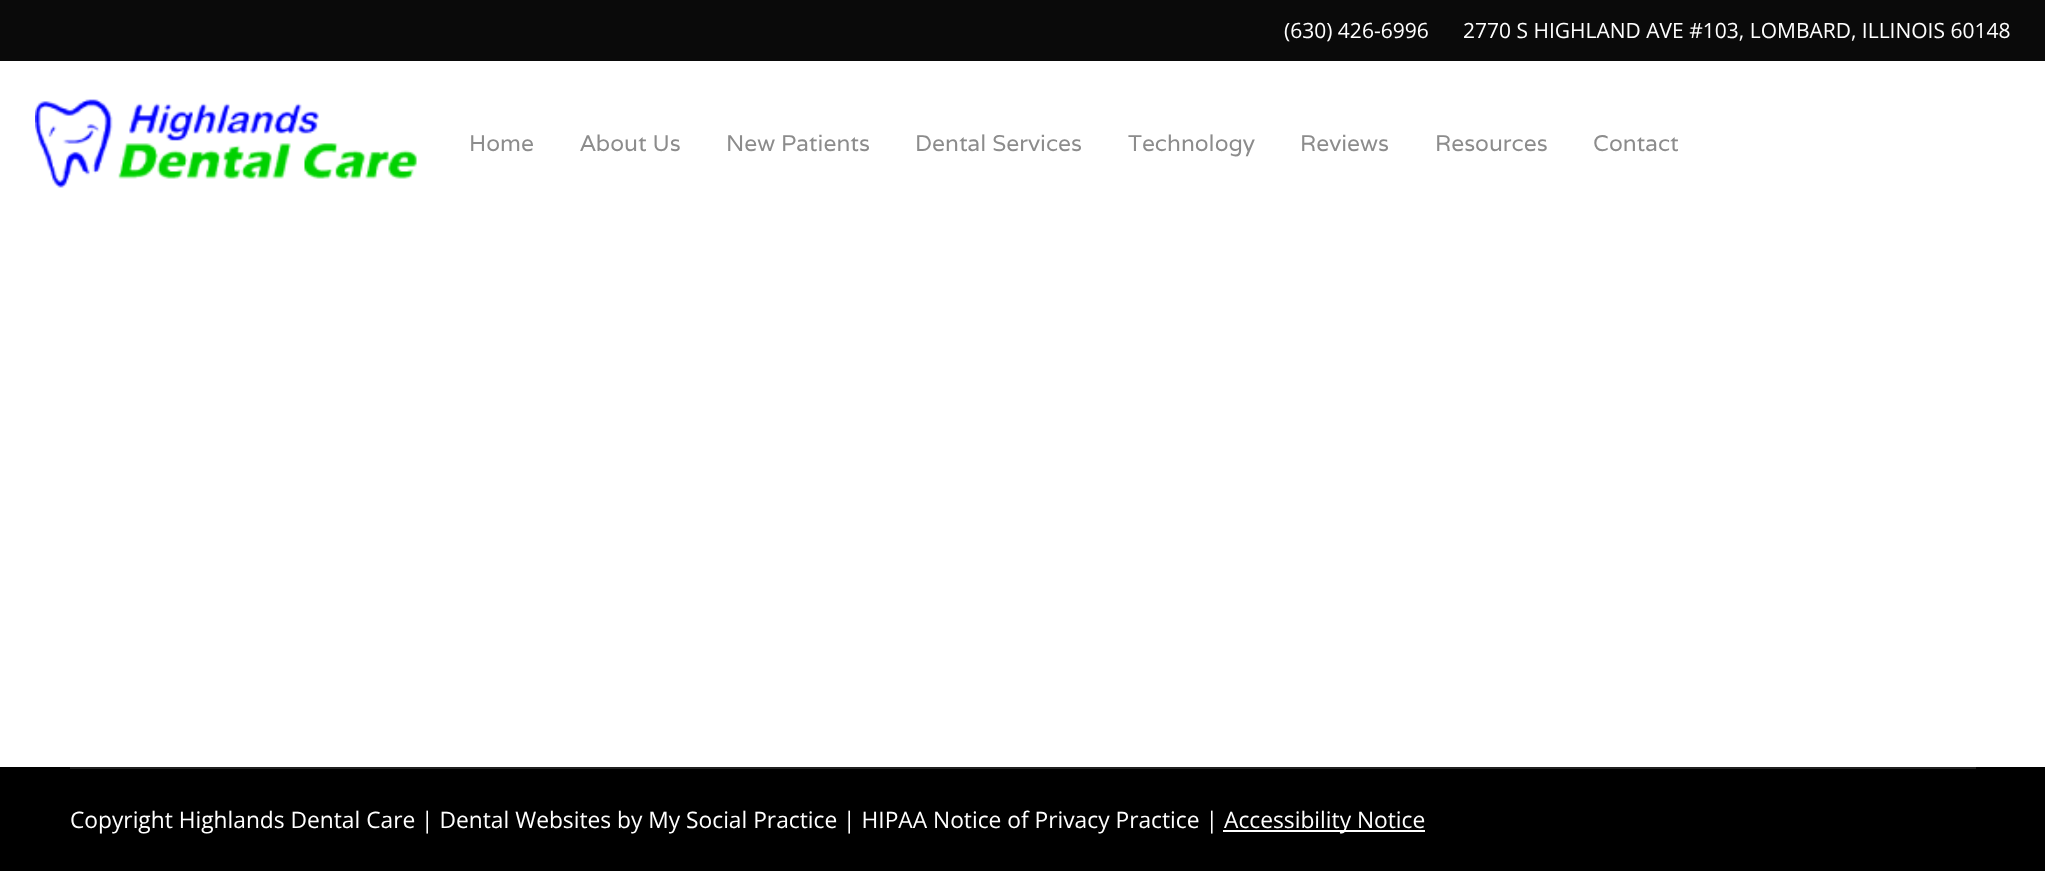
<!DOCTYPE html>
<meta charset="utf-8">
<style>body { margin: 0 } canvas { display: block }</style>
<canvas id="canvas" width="2045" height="871"></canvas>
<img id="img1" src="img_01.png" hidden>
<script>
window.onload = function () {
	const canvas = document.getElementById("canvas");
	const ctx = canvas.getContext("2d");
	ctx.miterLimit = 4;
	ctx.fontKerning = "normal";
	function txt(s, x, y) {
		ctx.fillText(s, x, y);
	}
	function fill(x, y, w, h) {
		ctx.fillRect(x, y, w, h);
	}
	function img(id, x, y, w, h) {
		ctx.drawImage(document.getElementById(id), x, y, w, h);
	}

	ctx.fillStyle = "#FFFFFF";
	fill(0, 0, 2045, 871);
	ctx.fillStyle = "#0A0A0A";
	fill(0, 0, 2045, 61);
	img("img1", 35, 99, 382, 89);
	ctx.fillStyle = "#000000";
	fill(0, 767, 2045, 104);
	ctx.fillStyle = "#212121";
	fill(70, 767, 1906, 2);
	ctx.fillStyle = "#FFFFFF";
	fill(1223, 830, 202, 2);
	ctx.font = "21px Open Sans";
	txt("(630) 426-6996", 1284, 38);
	txt("2770 S HIGHLAND AVE #103, LOMBARD, ILLINOIS 60148", 1463, 38);
	ctx.font = "22.75px Varela";
	ctx.fillStyle = "#8C8C8C";
	txt("Home", 469, 151);
	txt("About Us", 580, 151);
	txt("New Patients", 726, 151);
	txt("Dental Services", 915, 151);
	txt("Technology", 1128, 151);
	txt("Reviews", 1300, 151);
	txt("Resources", 1435, 151);
	txt("Contact", 1593, 151);
	ctx.font = "22.75px Open Sans";
	ctx.fillStyle = "#FFFFFF";
	txt("Copyright Highlands Dental Care | Dental Websites by My Social Practice | HIPAA Notice of Privacy Practice |", 70, 828);
	txt("Accessibility Notice", 1224, 828);
};
</script>
